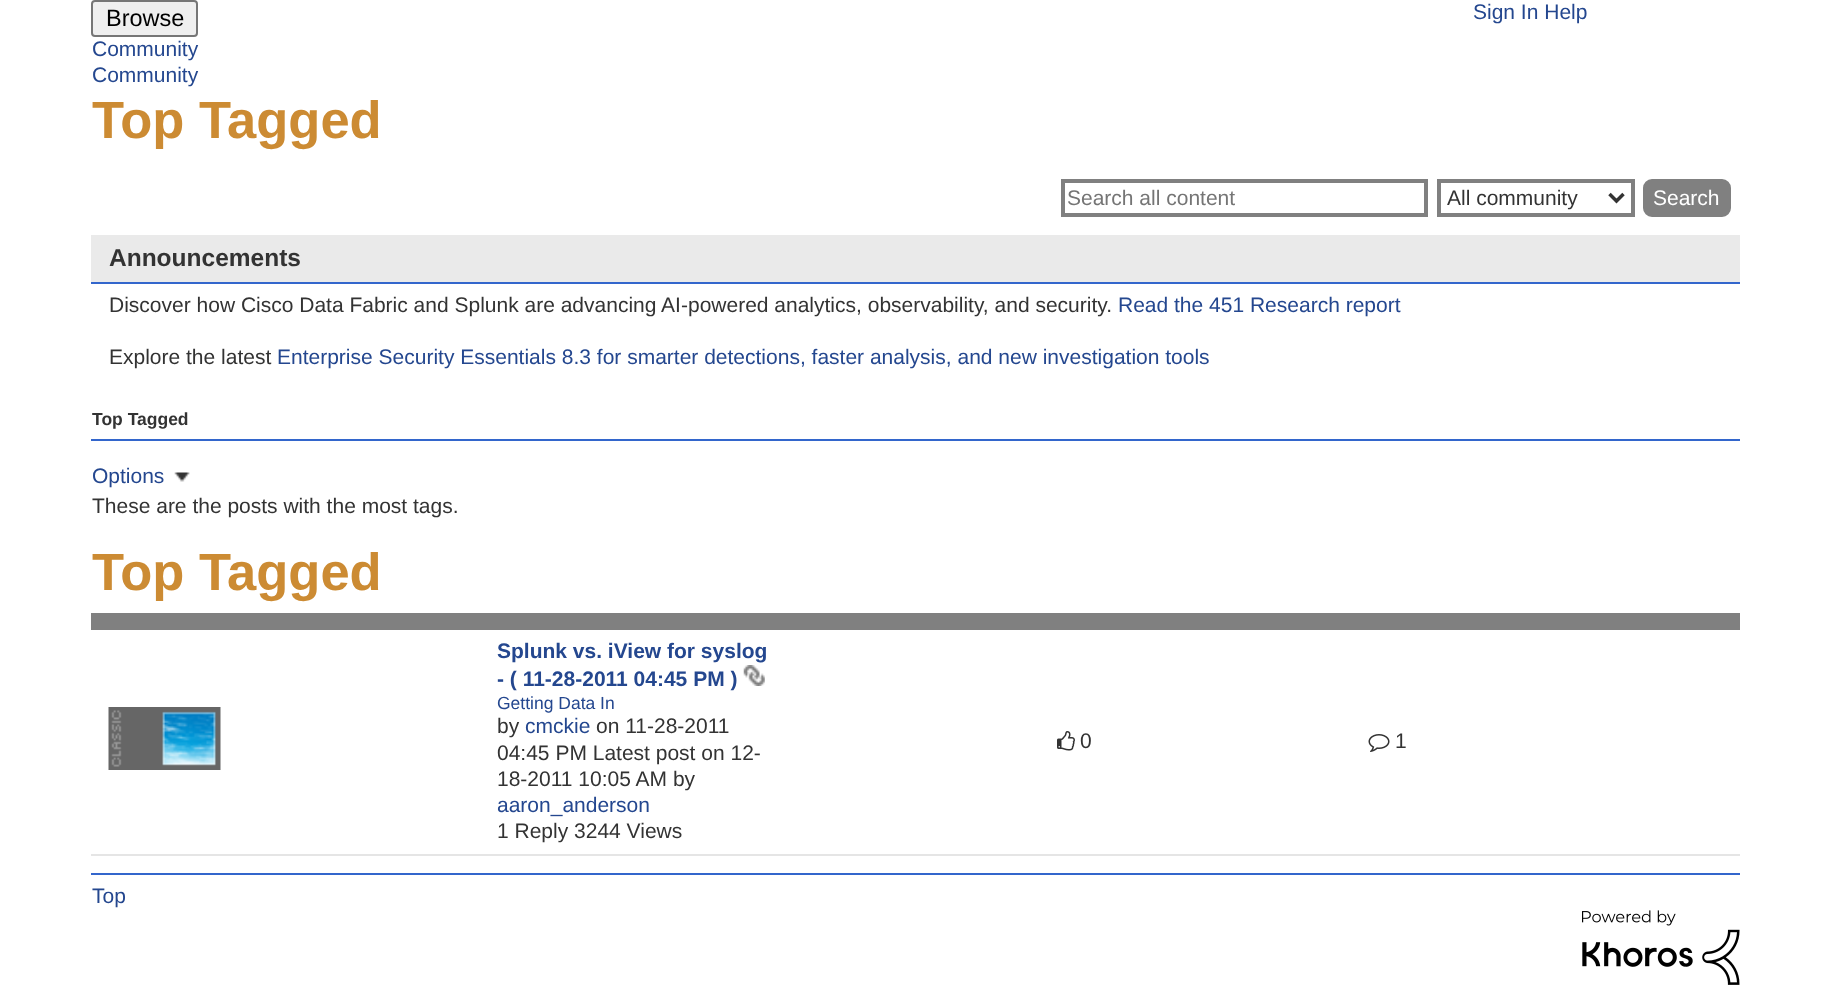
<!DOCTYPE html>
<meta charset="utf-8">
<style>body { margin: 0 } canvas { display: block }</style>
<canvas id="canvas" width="1830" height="997"></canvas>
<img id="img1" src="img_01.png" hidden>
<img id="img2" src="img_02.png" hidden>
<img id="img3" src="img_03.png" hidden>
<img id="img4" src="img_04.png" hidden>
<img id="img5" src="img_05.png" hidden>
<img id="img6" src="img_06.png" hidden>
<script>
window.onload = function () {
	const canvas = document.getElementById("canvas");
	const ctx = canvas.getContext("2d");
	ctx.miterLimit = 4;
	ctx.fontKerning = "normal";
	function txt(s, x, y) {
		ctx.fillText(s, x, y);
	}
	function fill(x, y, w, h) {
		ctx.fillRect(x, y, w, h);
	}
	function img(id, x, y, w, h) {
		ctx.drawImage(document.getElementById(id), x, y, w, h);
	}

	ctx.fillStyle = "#FFFFFF";
	fill(0, 0, 1830, 997);
	ctx.fillStyle = "#EFEFEF";
	ctx.beginPath();
	ctx.roundRect(92, 1, 105, 35, 3);
	ctx.fill();
	ctx.strokeStyle = "#767676";
	ctx.lineWidth = 2;
	ctx.stroke();
	ctx.strokeStyle = "#808080";
	ctx.lineWidth = 4;
	ctx.strokeRect(1063, 181, 363, 34);
	ctx.strokeRect(1439, 181, 194, 34);
	ctx.beginPath();
	ctx.moveTo(1609.5, 194);
	ctx.lineTo(1616.5, 201);
	ctx.lineTo(1623.5, 194);
	ctx.strokeStyle = "#333333";
	ctx.lineWidth = 3.5;
	ctx.stroke();
	ctx.fillStyle = "#808080";
	ctx.beginPath();
	ctx.roundRect(1644, 180, 86, 36, 8);
	ctx.fill();
	ctx.strokeStyle = "#808080";
	ctx.lineWidth = 2;
	ctx.stroke();
	ctx.fillStyle = "#EAEAEA";
	fill(91, 235, 1649, 47);
	ctx.fillStyle = "#3366CC";
	fill(91, 282, 1649, 2);
	fill(91, 439, 1649, 2);
	img("img1", 174, 472, 16, 10);
	ctx.fillStyle = "#808080";
	fill(91, 613, 1649, 17);
	img("img2", 108, 707, 113, 63);
	img("img3", 743, 665, 22, 21);
	img("img4", 1057, 731, 18, 20);
	img("img5", 1368, 734, 22, 18);
	ctx.fillStyle = "#E5E5E5";
	fill(91, 854, 1649, 2);
	ctx.fillStyle = "#3366CC";
	fill(91, 873, 1649, 2);
	img("img6", 1582, 910, 158, 75);
	ctx.font = "23.5px Liberation Sans";
	ctx.fillStyle = "#000000";
	txt("Browse", 106, 26);
	ctx.font = "21px Liberation Sans";
	ctx.fillStyle = "#24478F";
	txt("Community", 92, 56);
	txt("Community", 92, 82);
	txt("Sign In Help", 1473, 19);
	ctx.font = "bold 52.5px Liberation Sans";
	ctx.fillStyle = "#CC8B33";
	txt("Top Tagged", 92, 138);
	ctx.font = "21px Liberation Sans";
	ctx.fillStyle = "#757575";
	txt("Search all content", 1067, 205);
	ctx.fillStyle = "#333333";
	txt("All community", 1447, 205);
	ctx.fillStyle = "#FFFFFF";
	txt("Search", 1653, 205);
	ctx.font = "bold 24.5px Liberation Sans";
	ctx.fillStyle = "#333333";
	txt("Announcements", 109, 266);
	ctx.font = "21px Liberation Sans";
	txt("Discover how Cisco Data Fabric and Splunk are advancing AI-powered analytics, observability, and security.", 109, 312);
	ctx.fillStyle = "#24478F";
	txt("Read the 451 Research report", 1118, 312);
	ctx.fillStyle = "#333333";
	txt("Explore the latest", 109, 364);
	ctx.fillStyle = "#24478F";
	txt("Enterprise Security Essentials 8.3 for smarter detections, faster analysis, and new investigation tools", 277, 364);
	ctx.font = "bold 17.5px Liberation Sans";
	ctx.fillStyle = "#333333";
	txt("Top Tagged", 92, 425);
	ctx.font = "21px Liberation Sans";
	ctx.fillStyle = "#24478F";
	txt("Options", 92, 483);
	ctx.fillStyle = "#333333";
	txt("These are the posts with the most tags.", 92, 513);
	ctx.font = "bold 52.5px Liberation Sans";
	ctx.fillStyle = "#CC8B33";
	txt("Top Tagged", 92, 590);
	ctx.font = "bold 21px Liberation Sans";
	ctx.fillStyle = "#24478F";
	txt("Splunk vs. iView for syslog", 497, 658);
	txt("- ( 11-28-2011 04:45 PM )", 497, 686);
	ctx.font = "17.5px Liberation Sans";
	txt("Getting Data In", 497, 709);
	ctx.font = "21px Liberation Sans";
	ctx.fillStyle = "#333333";
	txt("by", 497, 733);
	ctx.fillStyle = "#24478F";
	txt("cmckie", 525, 733);
	ctx.fillStyle = "#333333";
	txt("on 11-28-2011", 596, 733);
	txt("04:45 PM Latest post on 12-", 497, 760);
	txt("18-2011 10:05 AM by", 497, 786);
	ctx.fillStyle = "#24478F";
	txt("aaron_anderson", 497, 812);
	ctx.fillStyle = "#333333";
	txt("1 Reply 3244 Views", 497, 838);
	txt("0", 1080, 748);
	txt("1", 1395, 748);
	ctx.fillStyle = "#24478F";
	txt("Top", 92, 903);
};
</script>
